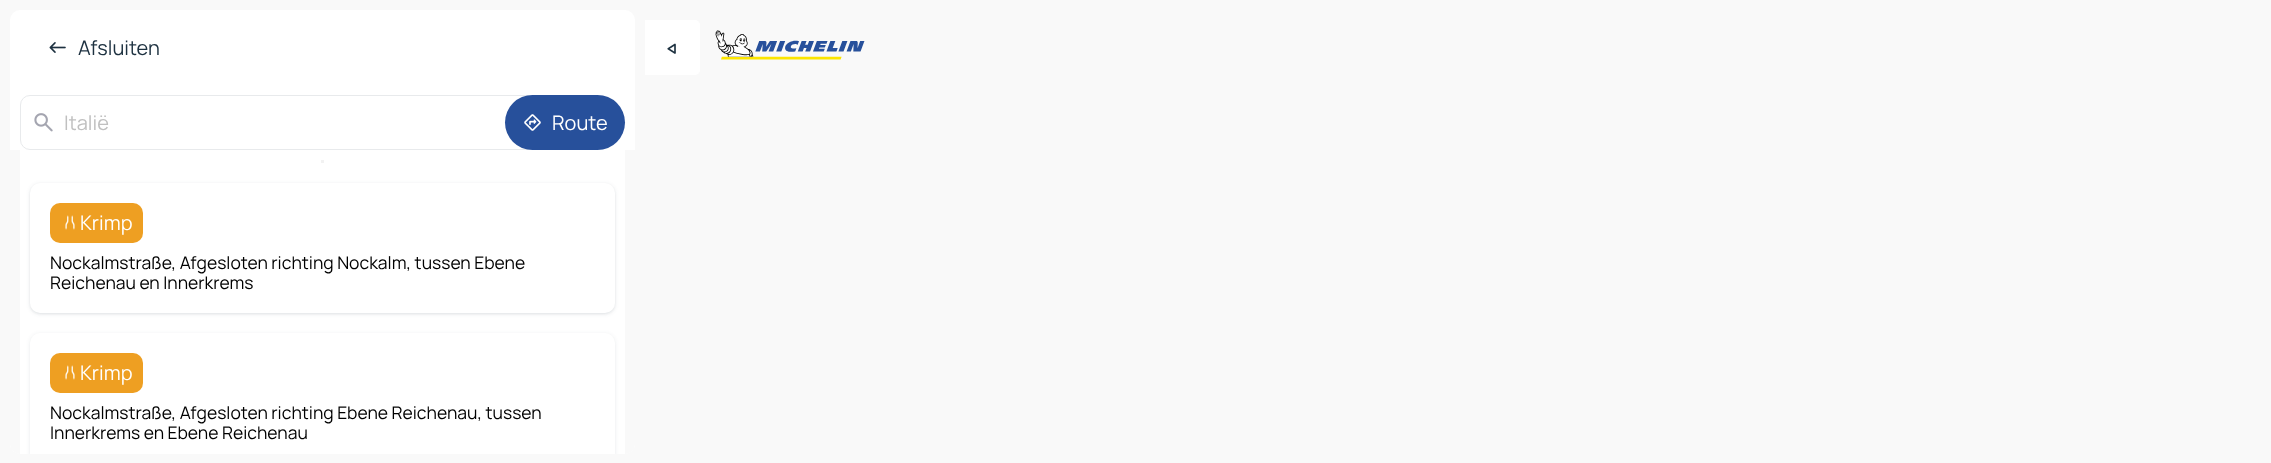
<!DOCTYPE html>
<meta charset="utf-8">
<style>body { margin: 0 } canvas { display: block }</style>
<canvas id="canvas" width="2271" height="463"></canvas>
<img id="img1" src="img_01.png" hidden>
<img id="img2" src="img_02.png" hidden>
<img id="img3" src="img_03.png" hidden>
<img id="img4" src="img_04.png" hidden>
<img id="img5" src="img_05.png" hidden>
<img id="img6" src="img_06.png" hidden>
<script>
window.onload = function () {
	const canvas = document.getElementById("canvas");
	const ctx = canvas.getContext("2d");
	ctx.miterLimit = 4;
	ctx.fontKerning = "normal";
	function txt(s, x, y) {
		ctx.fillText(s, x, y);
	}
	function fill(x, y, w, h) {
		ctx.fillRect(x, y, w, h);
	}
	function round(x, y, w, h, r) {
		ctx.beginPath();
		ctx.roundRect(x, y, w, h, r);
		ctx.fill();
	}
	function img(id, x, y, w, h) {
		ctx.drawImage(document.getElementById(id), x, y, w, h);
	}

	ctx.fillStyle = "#F9F9F9";
	fill(0, 0, 2271, 463);
	ctx.fillStyle = "#FFFFFF";
	round(10, 10, 625, 444, 10);
	img("img1", 49, 42, 17, 11);
	ctx.beginPath();
	ctx.roundRect(20.5, 95.5, 514, 54, 9.5);
	ctx.strokeStyle = "#E8EAEC";
	ctx.stroke();
	img("img2", 34, 113, 19, 19);
	ctx.fillStyle = "#27509B";
	round(505, 95, 120, 55, 27.5);
	img("img3", 524, 114, 17, 17);
	ctx.fillStyle = "#F9F9F9";
	ctx.beginPath();
	ctx.roundRect(10, 150, 625, 304, [0, 0, 10, 10]);
	ctx.fill();
	ctx.fillStyle = "#FFFFFF";
	fill(20, 150, 605, 304);
	ctx.fillStyle = "#F2F2F2";
	fill(321, 160, 3, 3);
	ctx.fillStyle = "rgba(29, 49, 64, 0.1)";
	ctx.filter = "blur(2px)";
	ctx.beginPath();
	ctx.roundRect(30, 184, 585, 130, 10);
	ctx.fill();
	ctx.filter = "none";
	ctx.fillStyle = "rgba(29, 49, 64, 0.06)";
	ctx.filter = "blur(1px)";
	ctx.beginPath();
	ctx.roundRect(30, 184, 585, 130, 10);
	ctx.fill();
	ctx.filter = "none";
	ctx.fillStyle = "#FFFFFF";
	round(30, 183, 585, 130, 10);
	ctx.fillStyle = "#EE9F22";
	round(50, 203, 93, 40, 10);
	img("img4", 65, 215, 10, 15);
	ctx.save();
	ctx.beginPath();
	ctx.roundRect(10, 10, 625, 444, 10);
	ctx.clip();
	ctx.fillStyle = "rgba(29, 49, 64, 0.1)";
	ctx.filter = "blur(2px)";
	ctx.beginPath();
	ctx.roundRect(30, 334, 585, 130, 10);
	ctx.fill();
	ctx.filter = "none";
	ctx.restore();
	ctx.save();
	ctx.beginPath();
	ctx.rect(10, 10, 625, 444);
	ctx.clip();
	ctx.fillStyle = "#FFFFFF";
	round(30, 333, 585, 130, 10);
	ctx.restore();
	round(50, 353, 93, 40, 10);
	img("img4", 65, 365, 10, 15);
	ctx.save();
	ctx.beginPath();
	ctx.moveTo(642, 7);
	ctx.lineTo(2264, 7);
	ctx.lineTo(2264, 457);
	ctx.lineTo(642, 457);
	ctx.closePath();
	ctx.moveTo(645, 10);
	ctx.lineTo(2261, 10);
	ctx.lineTo(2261, 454);
	ctx.lineTo(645, 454);
	ctx.closePath();
	ctx.clip("evenodd");
	ctx.fillStyle = "rgba(12, 26, 75, 0.24)";
	ctx.filter = "blur(0.5px)";
	ctx.beginPath();
	ctx.rect(645, 10, 1616, 444);
	ctx.fill();
	ctx.filter = "none";
	ctx.restore();
	ctx.fillStyle = "#FFFFFF";
	ctx.beginPath();
	ctx.roundRect(645, 20, 55, 55, [0, 5, 5, 0]);
	ctx.fill();
	img("img5", 667, 43, 9, 11);
	img("img6", 715, 30, 150, 30);
	ctx.font = "200 20px Manrope";
	ctx.fillStyle = "#1D3140";
	txt("Afsluiten", 78, 55);
	ctx.fillStyle = "#C0C0C0";
	txt("Italië", 64, 130);
	ctx.fillStyle = "#FFFFFF";
	txt("Route", 552, 130);
	txt("Krimp", 80, 230);
	ctx.font = "200 17.5px Manrope";
	ctx.fillStyle = "#000000";
	txt("Nockalmstraße, Afgesloten richting Nockalm, tussen Ebene", 50, 269);
	txt("Reichenau en Innerkrems", 50, 289);
	ctx.font = "200 20px Manrope";
	ctx.fillStyle = "#FFFFFF";
	txt("Krimp", 80, 380);
	ctx.font = "200 17.5px Manrope";
	ctx.fillStyle = "#000000";
	txt("Nockalmstraße, Afgesloten richting Ebene Reichenau, tussen", 50, 419);
	txt("Innerkrems en Ebene Reichenau", 50, 439);
};
</script>
